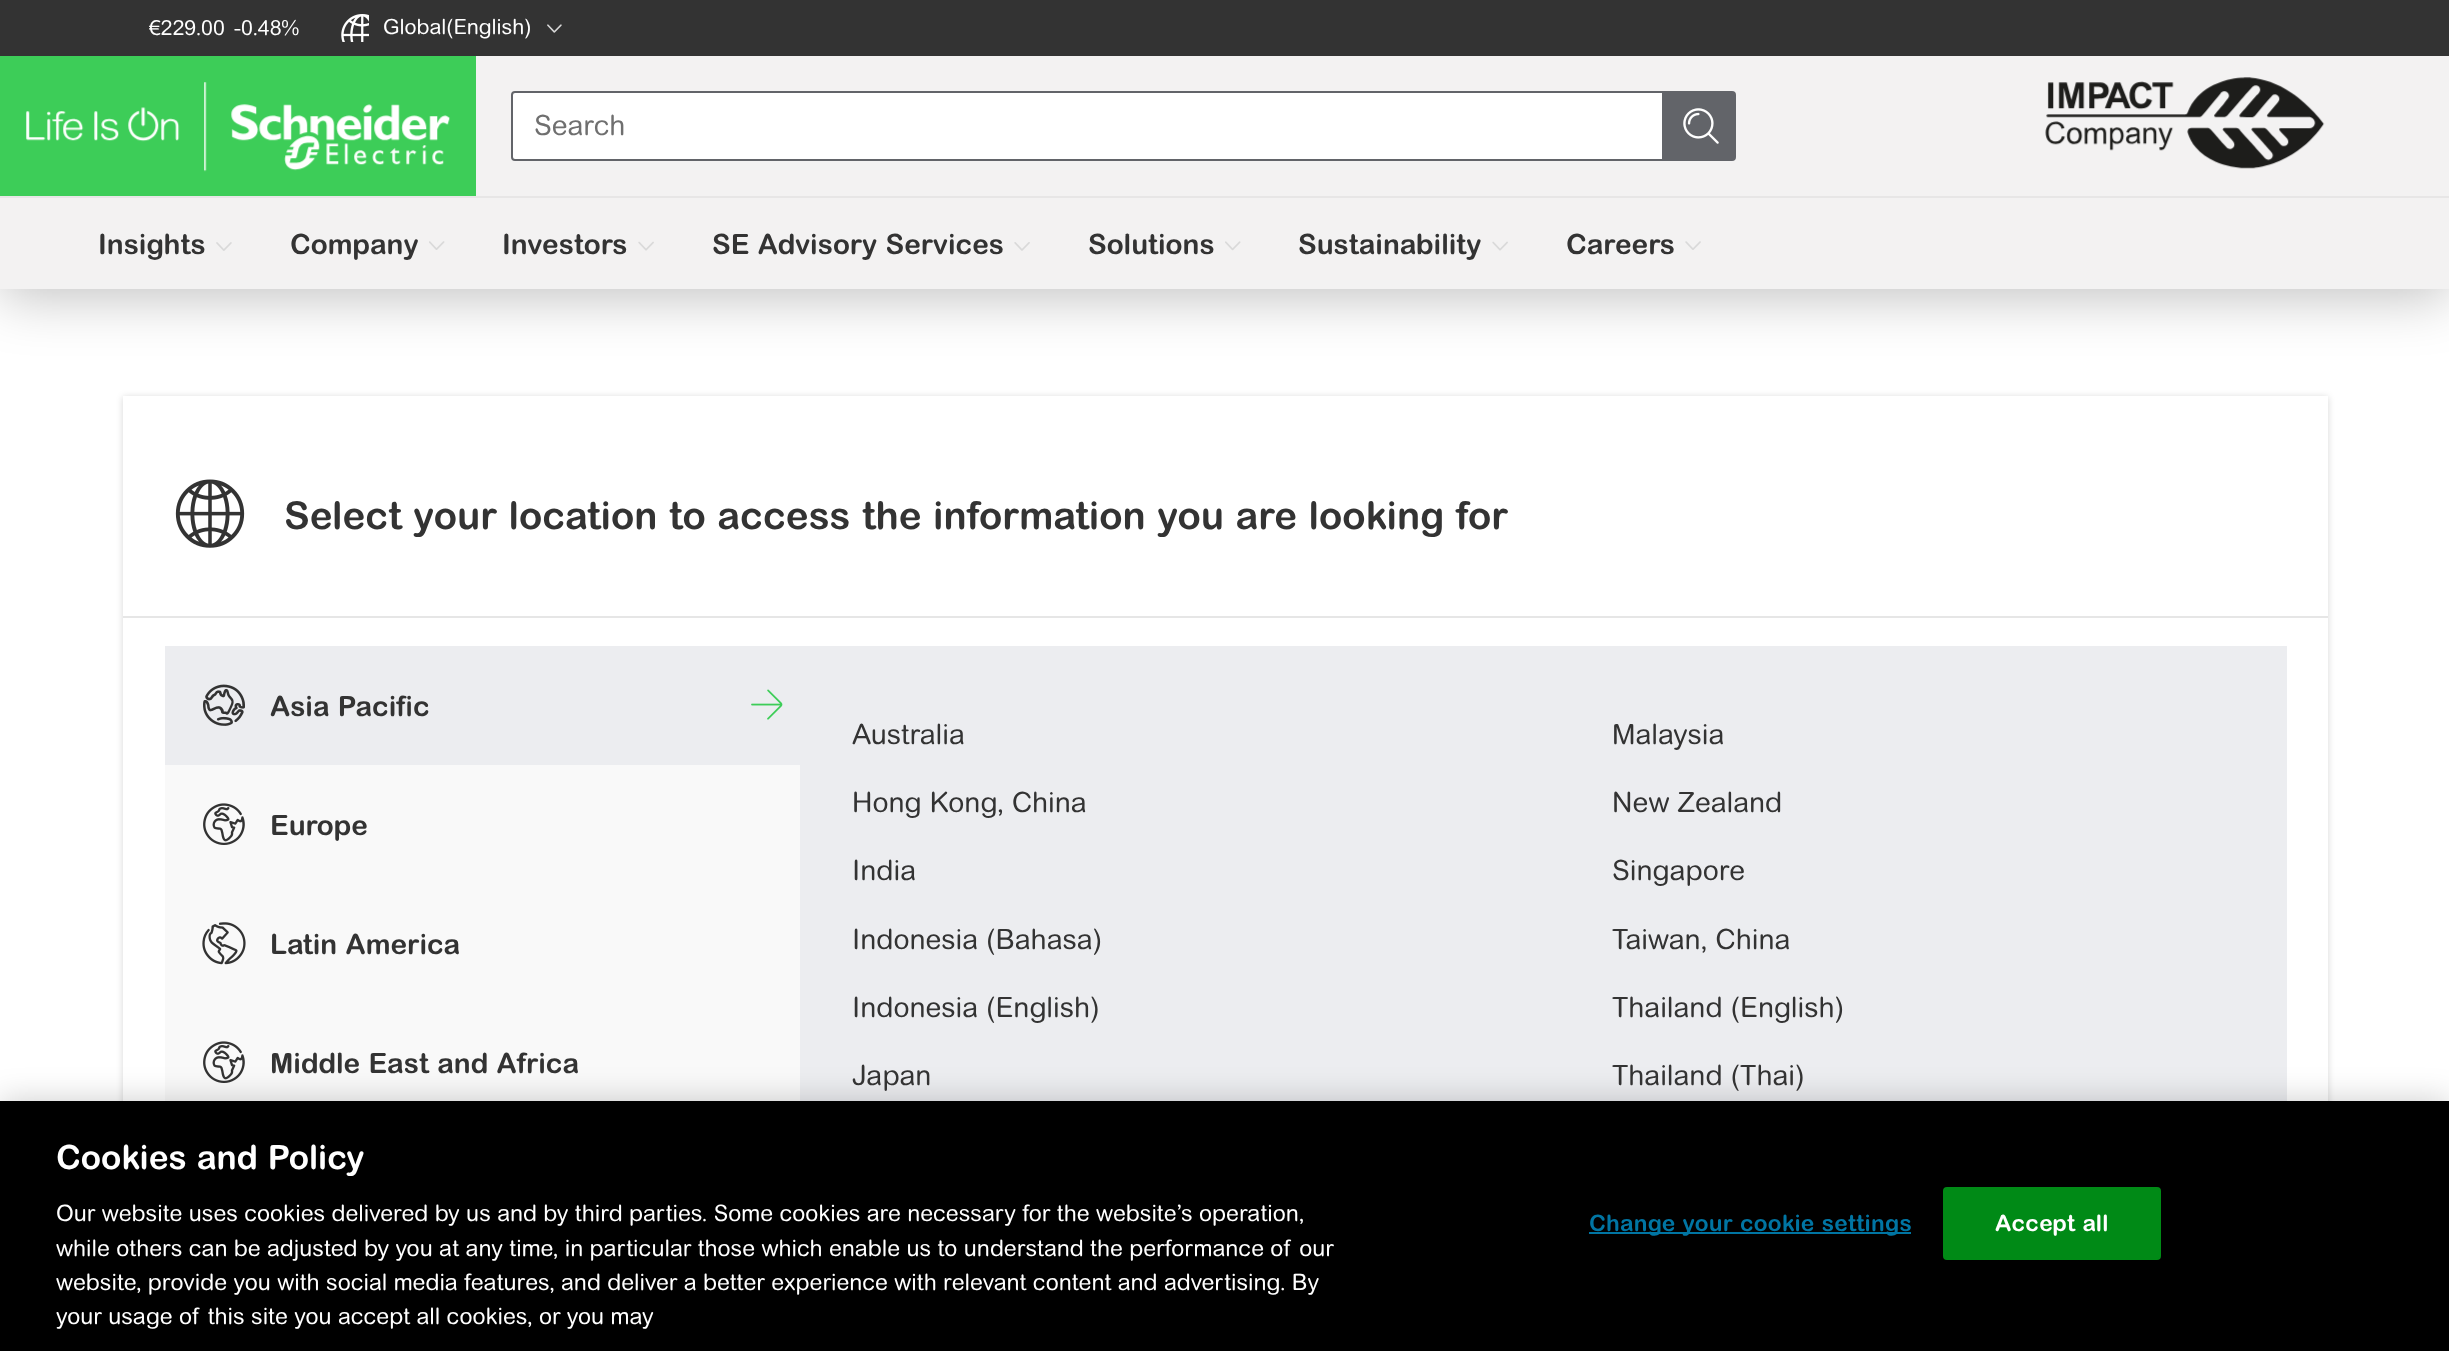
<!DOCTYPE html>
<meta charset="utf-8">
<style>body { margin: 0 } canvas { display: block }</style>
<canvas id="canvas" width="2449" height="1351"></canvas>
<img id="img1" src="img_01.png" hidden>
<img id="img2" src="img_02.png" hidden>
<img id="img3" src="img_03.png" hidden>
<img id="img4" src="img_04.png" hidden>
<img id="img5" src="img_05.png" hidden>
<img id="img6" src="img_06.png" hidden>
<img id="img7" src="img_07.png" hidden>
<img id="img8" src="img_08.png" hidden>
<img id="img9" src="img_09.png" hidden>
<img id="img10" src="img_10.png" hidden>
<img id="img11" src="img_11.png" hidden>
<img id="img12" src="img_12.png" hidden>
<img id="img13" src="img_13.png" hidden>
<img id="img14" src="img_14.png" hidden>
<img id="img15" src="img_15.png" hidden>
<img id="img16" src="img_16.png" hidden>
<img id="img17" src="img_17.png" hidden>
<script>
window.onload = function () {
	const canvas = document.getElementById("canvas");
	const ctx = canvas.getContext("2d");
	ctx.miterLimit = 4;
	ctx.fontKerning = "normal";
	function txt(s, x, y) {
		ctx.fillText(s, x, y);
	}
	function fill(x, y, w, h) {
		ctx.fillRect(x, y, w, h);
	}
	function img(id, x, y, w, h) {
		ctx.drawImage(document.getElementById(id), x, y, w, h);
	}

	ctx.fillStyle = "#FFFFFF";
	fill(0, 0, 2449, 1351);
	ctx.fillStyle = "rgba(0, 0, 0, 0.25)";
	ctx.filter = "blur(28px)";
	ctx.beginPath();
	ctx.rect(0, 63, 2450, 233);
	ctx.fill();
	ctx.filter = "none";
	ctx.fillStyle = "#333333";
	fill(0, 0, 2449, 56);
	img("img1", 341, 14, 28, 28);
	img("img2", 547, 24, 15, 9);
	ctx.fillStyle = "#F3F2F2";
	fill(0, 56, 2449, 233);
	ctx.fillStyle = "#E7E6E6";
	fill(0, 196, 2449, 2);
	ctx.fillStyle = "#3DCD58";
	fill(0, 56, 476, 140);
	img("img3", 26, 82, 424, 90);
	ctx.fillStyle = "#FFFFFF";
	ctx.beginPath();
	ctx.roundRect(512, 92, 1151, 68, [3, 0, 0, 3]);
	ctx.fill();
	ctx.strokeStyle = "#626469";
	ctx.lineWidth = 2;
	ctx.stroke();
	ctx.fillStyle = "#626469";
	ctx.beginPath();
	ctx.roundRect(1664, 91, 72, 70, [0, 4, 4, 0]);
	ctx.fill();
	img("img4", 1683, 108, 36, 36);
	img("img5", 2045, 77, 280, 92);
	img("img6", 216, 242, 16, 9);
	img("img7", 429, 241, 16, 9);
	img("img8", 638, 241, 16, 10);
	img("img9", 1014, 242, 16, 9);
	img("img10", 1225, 241, 16, 10);
	img("img11", 1492, 241, 16, 10);
	img("img12", 1685, 241, 16, 9);
	ctx.save();
	ctx.beginPath();
	ctx.moveTo(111, 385);
	ctx.lineTo(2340, 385);
	ctx.lineTo(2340, 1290);
	ctx.lineTo(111, 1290);
	ctx.closePath();
	ctx.moveTo(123, 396);
	ctx.lineTo(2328, 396);
	ctx.lineTo(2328, 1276);
	ctx.lineTo(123, 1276);
	ctx.closePath();
	ctx.clip("evenodd");
	ctx.fillStyle = "rgba(0, 0, 0, 0.16)";
	ctx.filter = "blur(3.5px)";
	ctx.beginPath();
	ctx.rect(123, 397, 2205, 881);
	ctx.fill();
	ctx.filter = "none";
	ctx.restore();
	img("img13", 175, 479, 70, 69);
	ctx.fillStyle = "#E6E6E6";
	fill(123, 616, 2205, 2);
	ctx.fillStyle = "#FFFFFF";
	fill(2327, 618, 1, 483);
	ctx.fillStyle = "#ECEDF0";
	fill(165, 646, 635, 119);
	img("img14", 203, 684, 42, 42);
	img("img15", 751, 689, 32, 31);
	fill(800, 646, 1487, 455);
	ctx.fillStyle = "#F9F9F9";
	fill(165, 765, 635, 336);
	img("img16", 203, 803, 42, 42);
	img("img17", 202, 922, 44, 43);
	img("img16", 203, 1041, 42, 42);
	ctx.fillStyle = "rgba(0, 0, 0, 0.2)";
	ctx.filter = "blur(16px)";
	ctx.beginPath();
	ctx.rect(0, 1101, 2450, 250);
	ctx.fill();
	ctx.filter = "none";
	ctx.fillStyle = "#000000";
	fill(0, 1101, 2449, 250);
	ctx.fillStyle = "#0075A3";
	fill(1589, 1232, 322, 2);
	ctx.fillStyle = "#008A16";
	ctx.beginPath();
	ctx.roundRect(1944, 1188, 216, 71, 3);
	ctx.fill();
	ctx.strokeStyle = "#008A16";
	ctx.stroke();
	ctx.font = "21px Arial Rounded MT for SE";
	ctx.fillStyle = "#FFFFFF";
	txt("€229.00", 149, 35);
	txt("-0.48%", 234, 35);
	txt("Global(English)", 383, 34);
	ctx.font = "28px Arial Rounded MT for SE";
	ctx.fillStyle = "#6F6F6F";
	txt("Search", 534, 135);
	ctx.font = "bold 28px Arial Rounded MT for SE";
	ctx.fillStyle = "#333333";
	txt("Insights", 98, 254);
	txt("Company", 290, 254);
	txt("Investors", 502, 254);
	txt("SE Advisory Services", 712, 254);
	txt("Solutions", 1088, 254);
	txt("Sustainability", 1298, 254);
	txt("Careers", 1566, 254);
	ctx.font = "bold 38.5px Arial Rounded MT for SE";
	txt("Select your location to access the information you are looking for", 284, 529);
	ctx.font = "bold 28px Arial Rounded MT for SE";
	txt("Asia Pacific", 270, 716);
	ctx.font = "28px Arial Rounded MT for SE";
	txt("Australia", 852, 744);
	txt("Hong Kong, China", 852, 812);
	txt("India", 852, 880);
	txt("Indonesia (Bahasa)", 852, 949);
	txt("Indonesia (English)", 852, 1017);
	txt("Japan", 852, 1085);
	txt("Malaysia", 1612, 744);
	txt("New Zealand", 1612, 812);
	txt("Singapore", 1612, 880);
	txt("Taiwan, China", 1612, 949);
	txt("Thailand (English)", 1612, 1017);
	txt("Thailand (Thai)", 1612, 1085);
	ctx.font = "bold 28px Arial Rounded MT for SE";
	txt("Europe", 270, 835);
	txt("Latin America", 270, 954);
	txt("Middle East and Africa", 270, 1073);
	ctx.font = "bold 33.5px Arial Rounded MT for SE";
	ctx.fillStyle = "#FFFFFF";
	txt("Cookies and Policy", 56, 1169);
	ctx.font = "22.75px Arial Rounded MT for SE";
	txt("Our website uses cookies delivered by us and by third parties. Some cookies are necessary for the website’s operation,", 56, 1221);
	txt("while others can be adjusted by you at any time, in particular those which enable us to understand the performance of our", 56, 1256);
	txt("website, provide you with social media features, and deliver a better experience with relevant content and advertising. By", 56, 1290);
	txt("your usage of this site you accept all cookies, or you may", 56, 1324);
	ctx.letterSpacing = "0.25px";
	ctx.font = "bold 22.75px Arial Rounded MT for SE";
	ctx.fillStyle = "#0075A3";
	txt("Change your cookie settings", 1589, 1231);
	ctx.fillStyle = "#FFFFFF";
	txt("Accept all", 1995, 1231);
};
</script>
